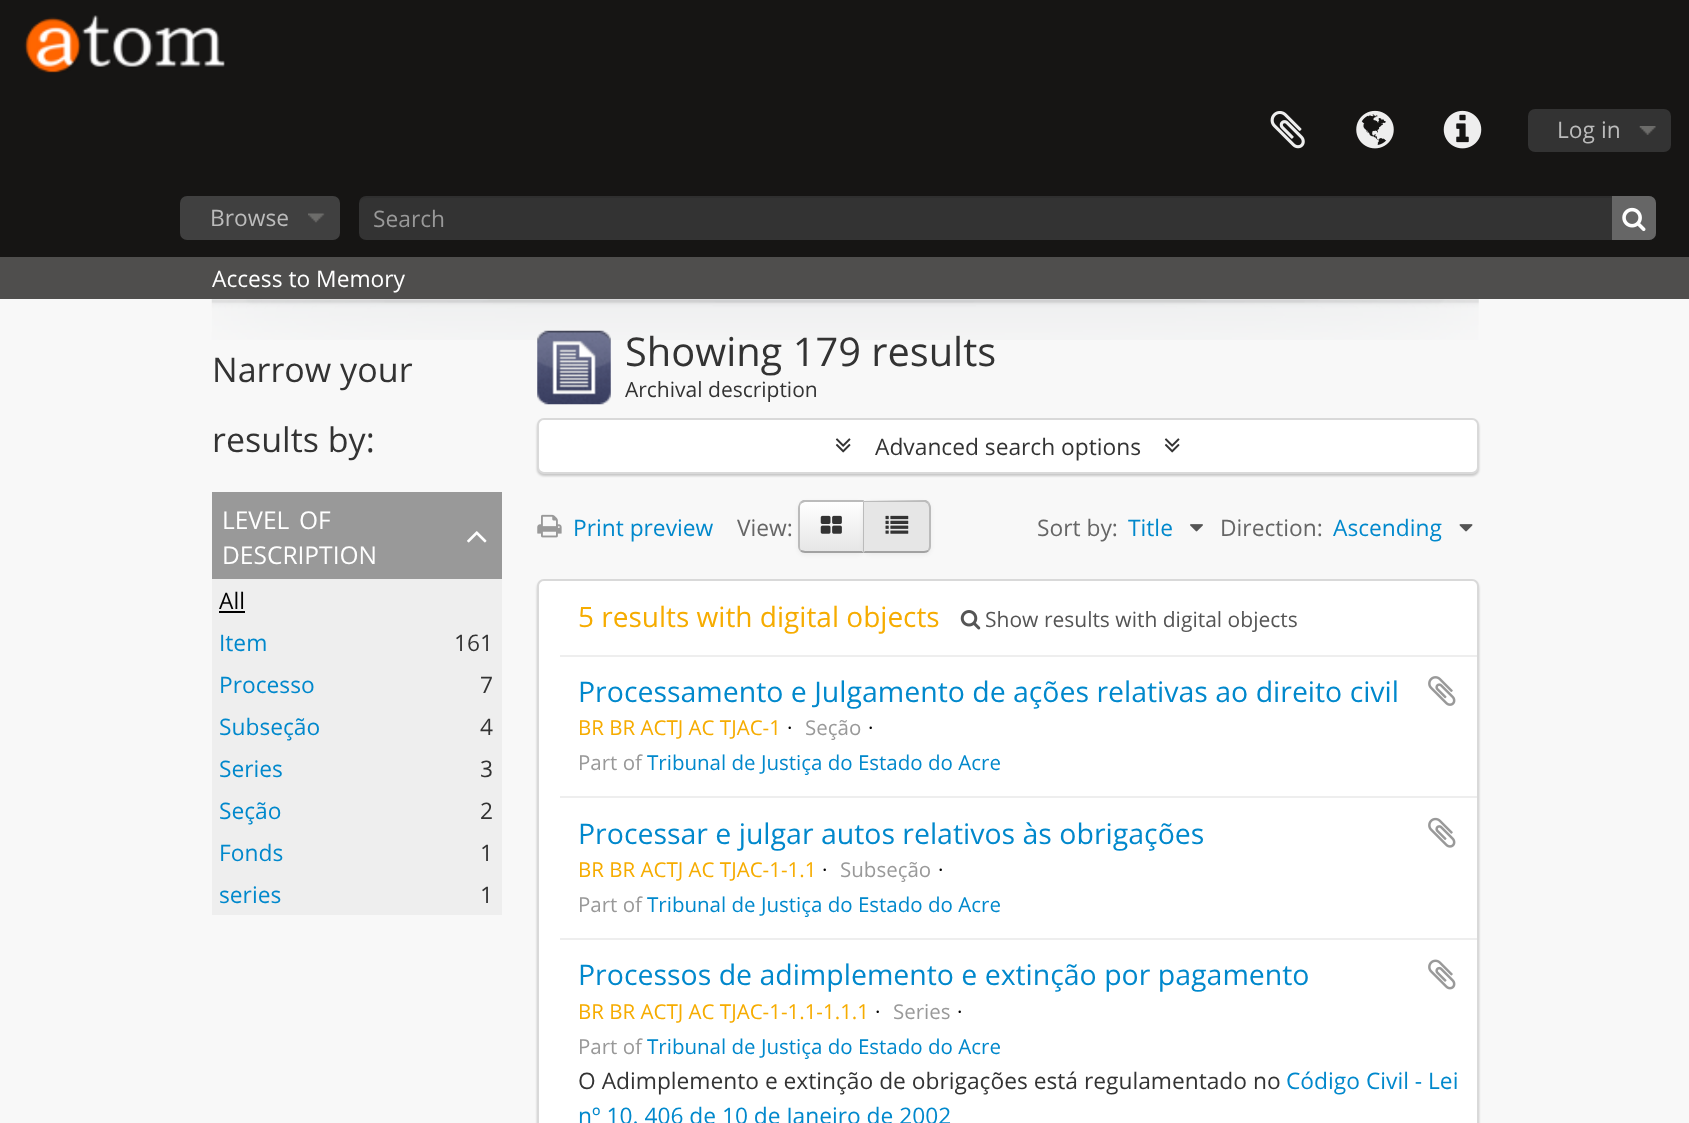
<!DOCTYPE html>
<meta charset="utf-8">
<style>body { margin: 0 } canvas { display: block }</style>
<canvas id="canvas" width="1689" height="1123"></canvas>
<img id="img1" src="img_01.png" hidden>
<img id="img2" src="img_02.png" hidden>
<img id="img3" src="img_03.png" hidden>
<img id="img4" src="img_04.png" hidden>
<img id="img5" src="img_05.png" hidden>
<img id="img6" src="img_06.png" hidden>
<img id="img7" src="img_07.png" hidden>
<img id="img8" src="img_08.png" hidden>
<img id="img9" src="img_09.png" hidden>
<img id="img10" src="img_10.png" hidden>
<img id="img11" src="img_11.png" hidden>
<img id="img12" src="img_12.png" hidden>
<img id="img13" src="img_13.png" hidden>
<img id="img14" src="img_14.png" hidden>
<img id="img15" src="img_15.png" hidden>
<img id="img16" src="img_16.png" hidden>
<img id="img17" src="img_17.png" hidden>
<img id="img18" src="img_18.png" hidden>
<img id="img19" src="img_19.png" hidden>
<img id="img20" src="img_20.png" hidden>
<script>
window.onload = function () {
	const canvas = document.getElementById("canvas");
	const ctx = canvas.getContext("2d");
	ctx.miterLimit = 4;
	ctx.fontKerning = "normal";
	function txt(s, x, y) {
		ctx.fillText(s, x, y);
	}
	function fill(x, y, w, h) {
		ctx.fillRect(x, y, w, h);
	}
	function round(x, y, w, h, r) {
		ctx.beginPath();
		ctx.roundRect(x, y, w, h, r);
		ctx.fill();
	}
	function img(id, x, y, w, h) {
		ctx.drawImage(document.getElementById(id), x, y, w, h);
	}
	let gradient;

	ctx.fillStyle = "#F8F8F8";
	fill(0, 0, 1689, 1123);
	ctx.fillStyle = "#161514";
	fill(0, 0, 1689, 257);
	img("img1", 24, 15, 201, 58);
	img("img2", 1270, 111, 35, 38);
	img("img3", 1356, 110, 38, 39);
	img("img4", 1443, 110, 39, 39);
	ctx.fillStyle = "#333333";
	round(1528, 109, 143, 43, 7);
	img("img5", 1639, 126, 17, 9);
	ctx.fillStyle = "#404040";
	round(180, 196, 160, 44, 7);
	img("img6", 308, 213, 17, 10);
	ctx.fillStyle = "#333333";
	round(359, 196, 1297, 44, 7);
	ctx.fillStyle = "rgba(0, 0, 0, 0.07)";
	ctx.beginPath();
	ctx.moveTo(366, 198);
	ctx.lineTo(1648, 198);
	ctx.bezierCurveTo(1652, 198, 1656, 201, 1656, 205);
	ctx.lineTo(1656, 203);
	ctx.bezierCurveTo(1656, 199, 1653, 196, 1649, 196);
	ctx.lineTo(366, 196);
	ctx.bezierCurveTo(362, 196, 359, 199, 359, 203);
	ctx.lineTo(359, 205);
	ctx.bezierCurveTo(359, 201, 362, 198, 366, 198);
	ctx.closePath();
	ctx.fill();
	ctx.fillStyle = "#666666";
	ctx.beginPath();
	ctx.roundRect(1612, 196, 44, 44, [0, 7, 7, 0]);
	ctx.fill();
	img("img7", 1622, 207, 24, 25);
	ctx.fillStyle = "#4F4E4D";
	fill(0, 257, 1689, 42);
	img("img8", 211, 299, 1268, 41);
	ctx.fillStyle = "#999999";
	fill(212, 492, 290, 87);
	img("img9", 467, 531, 20, 12);
	ctx.fillStyle = "#EEEEEE";
	fill(212, 579, 290, 336);
	ctx.fillStyle = "#000000";
	fill(219, 611, 26, 2);
	img("img10", 537, 330, 74, 75);
	ctx.fillStyle = "rgba(0, 0, 0, 0.2)";
	ctx.filter = "blur(1px)";
	ctx.beginPath();
	ctx.roundRect(537, 420, 942, 56, 7);
	ctx.fill();
	ctx.filter = "none";
	ctx.fillStyle = "#FFFFFF";
	ctx.beginPath();
	ctx.roundRect(538, 419, 940, 54, 6);
	ctx.fill();
	ctx.strokeStyle = "#D9D9D9";
	ctx.lineWidth = 2;
	ctx.stroke();
	img("img11", 835, 438, 16, 15);
	img("img11", 1164, 438, 16, 15);
	img("img12", 537, 514, 25, 24);
	ctx.fillStyle = "rgba(0, 0, 0, 0.05)";
	ctx.filter = "blur(2px)";
	ctx.beginPath();
	ctx.roundRect(798, 502, 67, 53, 7);
	ctx.fill();
	ctx.filter = "none";
	ctx.fillStyle = "#F5F5F5";
	ctx.beginPath();
	ctx.roundRect(798, 501, 67, 52, [7, 0, 0, 7]);
	ctx.fill();
	ctx.save();
	ctx.beginPath();
	ctx.roundRect(798, 501, 67, 52, [7, 0, 0, 7]);
	ctx.clip();
	gradient = ctx.createLinearGradient(831, 502, 831, 551);
	gradient.addColorStop(0, "#FFFFFF");
	gradient.addColorStop(1, "#E6E6E6");
	ctx.fillStyle = gradient;
	fill(798, 502, 65, 49);
	ctx.restore();
	ctx.fillStyle = "#BBBBBB";
	ctx.beginPath();
	ctx.moveTo(805, 502);
	ctx.bezierCurveTo(804, 502, 802, 503, 801, 504);
	ctx.lineTo(800, 502);
	ctx.lineTo(803, 500);
	ctx.lineTo(864, 500);
	ctx.lineTo(863, 502);
	ctx.closePath();
	ctx.fill();
	ctx.fillStyle = "#A2A2A2";
	ctx.beginPath();
	ctx.moveTo(805, 553);
	ctx.lineTo(864, 553);
	ctx.lineTo(862, 551);
	ctx.lineTo(805, 551);
	ctx.bezierCurveTo(804, 551, 802, 550, 801, 550);
	ctx.lineTo(800, 551);
	ctx.bezierCurveTo(801, 552, 803, 553, 805, 553);
	ctx.closePath();
	ctx.fill();
	ctx.fillStyle = "#BBBBBB";
	ctx.beginPath();
	ctx.moveTo(798, 508);
	ctx.lineTo(798, 546);
	ctx.bezierCurveTo(798, 548, 799, 550, 800, 551);
	ctx.lineTo(801, 550);
	ctx.bezierCurveTo(800, 549, 800, 548, 800, 546);
	ctx.lineTo(800, 508);
	ctx.bezierCurveTo(800, 506, 800, 505, 801, 504);
	ctx.lineTo(800, 502);
	ctx.bezierCurveTo(799, 504, 798, 506, 798, 508);
	ctx.closePath();
	ctx.fill();
	img("img13", 820, 515, 22, 19);
	ctx.fillStyle = "rgba(0, 0, 0, 0.05)";
	ctx.filter = "blur(2px)";
	ctx.beginPath();
	ctx.roundRect(863, 502, 68, 53, 7);
	ctx.fill();
	ctx.filter = "none";
	ctx.fillStyle = "#E6E6E6";
	ctx.beginPath();
	ctx.roundRect(863, 501, 68, 52, [0, 7, 7, 0]);
	ctx.fill();
	ctx.fillStyle = "#BBBBBB";
	ctx.beginPath();
	ctx.moveTo(863, 501);
	ctx.lineTo(926, 500);
	ctx.lineTo(929, 502);
	ctx.lineTo(928, 504);
	ctx.lineTo(925, 502);
	ctx.lineTo(864, 502);
	ctx.closePath();
	ctx.fill();
	ctx.beginPath();
	ctx.moveTo(931, 546);
	ctx.lineTo(931, 508);
	ctx.bezierCurveTo(931, 506, 930, 504, 929, 502);
	ctx.lineTo(928, 504);
	ctx.bezierCurveTo(928, 505, 929, 506, 929, 508);
	ctx.lineTo(929, 546);
	ctx.bezierCurveTo(929, 548, 928, 549, 928, 550);
	ctx.lineTo(929, 551);
	ctx.bezierCurveTo(930, 550, 931, 548, 931, 546);
	ctx.closePath();
	ctx.fill();
	ctx.fillStyle = "#A2A2A2";
	ctx.beginPath();
	ctx.moveTo(863, 553);
	ctx.lineTo(924, 553);
	ctx.bezierCurveTo(926, 553, 928, 552, 929, 551);
	ctx.lineTo(928, 550);
	ctx.bezierCurveTo(927, 550, 926, 551, 924, 551);
	ctx.lineTo(865, 551);
	ctx.closePath();
	ctx.fill();
	ctx.fillStyle = "#BBBBBB";
	ctx.beginPath();
	ctx.moveTo(864, 502);
	ctx.lineTo(864, 551);
	ctx.lineTo(865, 551);
	ctx.lineTo(863, 553);
	ctx.lineTo(863, 501);
	ctx.closePath();
	ctx.fill();
	img("img14", 885, 515, 24, 19);
	img("img15", 1190, 524, 13, 8);
	img("img16", 1459, 524, 14, 8);
	ctx.fillStyle = "rgba(0, 0, 0, 0.2)";
	ctx.filter = "blur(1px)";
	ctx.beginPath();
	ctx.roundRect(537, 581, 942, 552, 7);
	ctx.fill();
	ctx.filter = "none";
	ctx.fillStyle = "#FFFFFF";
	ctx.beginPath();
	ctx.roundRect(538, 580, 940, 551, 6);
	ctx.fill();
	ctx.stroke();
	ctx.fillStyle = "#EEEEEE";
	fill(560, 655, 917, 2);
	img("img17", 960, 610, 21, 20);
	fill(560, 796, 917, 2);
	img("img18", 1428, 676, 28, 30);
	fill(560, 938, 917, 2);
	img("img19", 1428, 817, 28, 31);
	img("img20", 1428, 959, 28, 31);
	ctx.font = "22.75px Open Sans";
	ctx.fillStyle = "#BBBBBB";
	txt("Log in", 1557, 138);
	txt("Browse", 210, 226);
	ctx.fillStyle = "#999999";
	txt("Search", 373, 227);
	ctx.fillStyle = "#FFFFFF";
	txt("Access to Memory", 212, 287);
	ctx.font = "34px Open Sans";
	ctx.fillStyle = "#333333";
	txt("Narrow your", 212, 382);
	txt("results by:", 212, 452);
	ctx.font = "24.5px Open Sans";
	ctx.fillStyle = "#FFFFFF";
	txt("LEVEL", 222, 529);
	txt("OF", 299, 529);
	txt("DESCRIPTION", 222, 564);
	ctx.font = "22.75px Open Sans";
	ctx.fillStyle = "#000000";
	txt("All", 219, 609);
	ctx.fillStyle = "#0088CC";
	txt("Item", 219, 651);
	ctx.fillStyle = "#333333";
	txt("161", 454, 651);
	ctx.fillStyle = "#0088CC";
	txt("Processo", 219, 693);
	ctx.fillStyle = "#333333";
	txt("7", 480, 693);
	ctx.fillStyle = "#0088CC";
	txt("Subseção", 219, 735);
	ctx.fillStyle = "#333333";
	txt("4", 480, 735);
	ctx.fillStyle = "#0088CC";
	txt("Series", 219, 777);
	ctx.fillStyle = "#333333";
	txt("3", 480, 777);
	ctx.fillStyle = "#0088CC";
	txt("Seção", 219, 819);
	ctx.fillStyle = "#333333";
	txt("2", 480, 819);
	ctx.fillStyle = "#0088CC";
	txt("Fonds", 219, 861);
	ctx.fillStyle = "#333333";
	txt("1", 480, 861);
	ctx.fillStyle = "#0088CC";
	txt("series", 219, 903);
	ctx.fillStyle = "#333333";
	txt("1", 480, 903);
	ctx.font = "39.75px Open Sans";
	txt("Showing 179 results", 625, 366);
	ctx.font = "21px Open Sans";
	txt("Archival description", 625, 397);
	ctx.font = "22.75px Open Sans";
	txt("Advanced search options", 875, 455);
	ctx.fillStyle = "#0088CC";
	txt("Print preview", 573, 536);
	ctx.fillStyle = "#666666";
	txt("View:", 737, 536);
	txt("Sort by:", 1037, 536);
	ctx.fillStyle = "#0088CC";
	txt("Title", 1128, 536);
	ctx.fillStyle = "#666666";
	txt("Direction:", 1220, 536);
	ctx.fillStyle = "#0088CC";
	txt("Ascending", 1333, 536);
	ctx.font = "28px Open Sans";
	ctx.fillStyle = "#F6AC00";
	txt("5 results with digital objects", 578, 627);
	ctx.font = "21px Open Sans";
	ctx.fillStyle = "#555555";
	txt("Show results with digital objects", 985, 627);
	ctx.font = "28.45px Open Sans";
	ctx.fillStyle = "#0088CC";
	txt("Processamento e Julgamento de ações relativas ao direito civil", 578, 702);
	ctx.font = "20.5px Open Sans";
	ctx.fillStyle = "#F6AC00";
	txt("BR BR ACTJ AC TJAC-1", 578, 735);
	ctx.fillStyle = "#000000";
	txt("·", 787, 735);
	ctx.fillStyle = "#999999";
	txt("Seção", 805, 735);
	ctx.fillStyle = "#000000";
	txt("·", 868, 735);
	ctx.fillStyle = "#999999";
	txt("Part of", 578, 770);
	ctx.fillStyle = "#0088CC";
	txt("Tribunal de Justiça do Estado do Acre", 647, 770);
	ctx.font = "28.45px Open Sans";
	txt("Processar e julgar autos relativos às obrigações", 578, 844);
	ctx.font = "20.5px Open Sans";
	ctx.fillStyle = "#F6AC00";
	txt("BR BR ACTJ AC TJAC-1-1.1", 578, 877);
	ctx.fillStyle = "#000000";
	txt("·", 822, 877);
	ctx.fillStyle = "#999999";
	txt("Subseção", 840, 877);
	ctx.fillStyle = "#000000";
	txt("·", 938, 877);
	ctx.fillStyle = "#999999";
	txt("Part of", 578, 912);
	ctx.fillStyle = "#0088CC";
	txt("Tribunal de Justiça do Estado do Acre", 647, 912);
	ctx.font = "28.45px Open Sans";
	txt("Processos de adimplemento e extinção por pagamento", 578, 985);
	ctx.font = "20.5px Open Sans";
	ctx.fillStyle = "#F6AC00";
	txt("BR BR ACTJ AC TJAC-1-1.1-1.1.1", 578, 1019);
	ctx.fillStyle = "#000000";
	txt("·", 875, 1019);
	ctx.fillStyle = "#999999";
	txt("Series", 893, 1019);
	ctx.fillStyle = "#000000";
	txt("·", 957, 1019);
	ctx.fillStyle = "#999999";
	txt("Part of", 578, 1054);
	ctx.fillStyle = "#0088CC";
	txt("Tribunal de Justiça do Estado do Acre", 647, 1054);
	ctx.font = "22.75px Open Sans";
	ctx.fillStyle = "#333333";
	txt("O Adimplemento e extinção de obrigações está regulamentado no", 578, 1089);
	ctx.fillStyle = "#0088CC";
	txt("Código Civil - Lei", 1286, 1089);
	txt("nº 10. 406 de 10 de Janeiro de 2002", 578, 1124);
};
</script>
